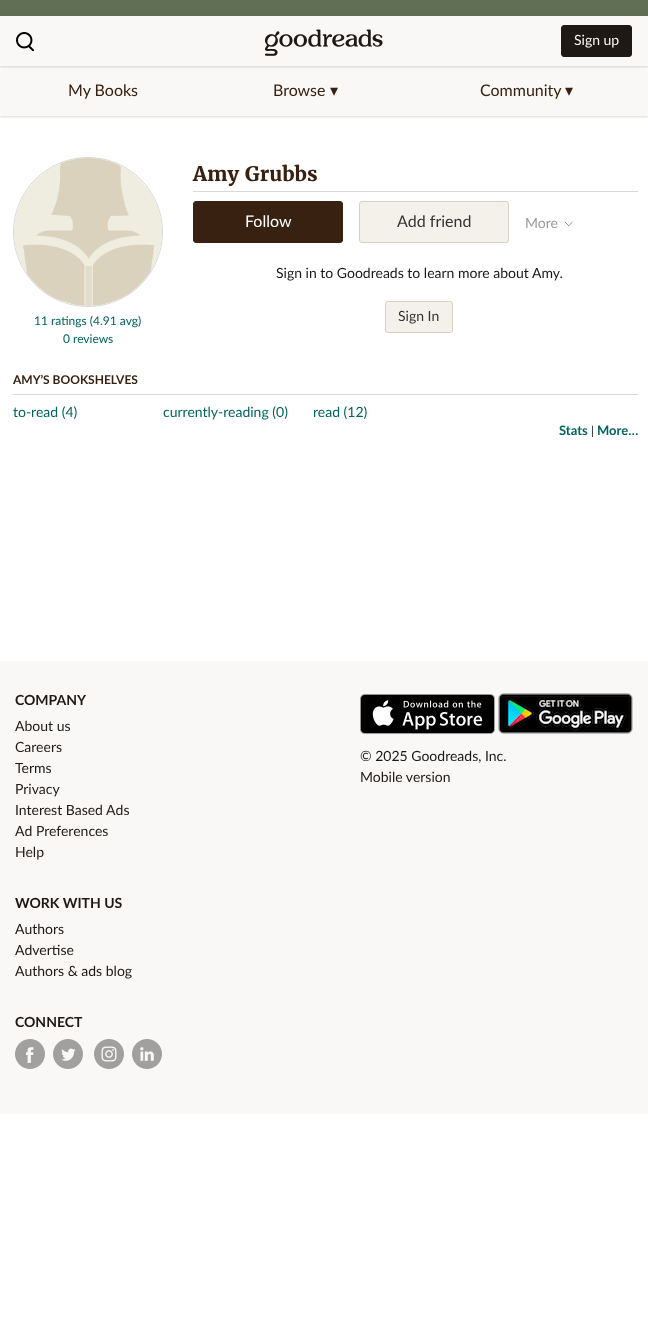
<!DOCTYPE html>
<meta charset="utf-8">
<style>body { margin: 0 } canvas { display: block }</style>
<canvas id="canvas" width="648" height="1323"></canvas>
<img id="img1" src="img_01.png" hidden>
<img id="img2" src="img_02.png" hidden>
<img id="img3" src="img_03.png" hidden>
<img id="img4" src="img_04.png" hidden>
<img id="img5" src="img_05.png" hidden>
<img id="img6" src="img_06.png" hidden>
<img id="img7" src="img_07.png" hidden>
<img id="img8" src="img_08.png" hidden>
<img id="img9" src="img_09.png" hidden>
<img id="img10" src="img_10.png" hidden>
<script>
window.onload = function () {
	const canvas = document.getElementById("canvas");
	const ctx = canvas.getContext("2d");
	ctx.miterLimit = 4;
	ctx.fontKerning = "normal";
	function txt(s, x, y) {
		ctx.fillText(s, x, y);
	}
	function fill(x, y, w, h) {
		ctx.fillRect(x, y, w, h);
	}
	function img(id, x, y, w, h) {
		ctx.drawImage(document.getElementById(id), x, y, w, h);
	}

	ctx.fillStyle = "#FFFFFF";
	fill(0, 0, 648, 1323);
	ctx.fillStyle = "#617054";
	fill(0, 0, 648, 16);
	ctx.fillStyle = "rgba(0, 0, 0, 0.15)";
	ctx.filter = "blur(1px)";
	ctx.beginPath();
	ctx.rect(0, 67, 648, 50);
	ctx.fill();
	ctx.filter = "none";
	ctx.fillStyle = "#FAF8F6";
	fill(0, 66, 648, 50);
	ctx.fillStyle = "rgba(0, 0, 0, 0.15)";
	ctx.filter = "blur(1px)";
	ctx.beginPath();
	ctx.rect(0, 17, 648, 50);
	ctx.fill();
	ctx.filter = "none";
	ctx.fillStyle = "#FAF8F6";
	fill(0, 16, 648, 50);
	img("img1", 16, 32, 18, 19);
	img("img2", 265, 29, 118, 27);
	ctx.fillStyle = "#1E1915";
	ctx.beginPath();
	ctx.roundRect(561.5, 25.5, 70, 31, 2.5);
	ctx.fill();
	ctx.strokeStyle = "#1E1915";
	ctx.stroke();
	ctx.fillStyle = "#D8D8D8";
	fill(193, 191, 445, 1);
	ctx.fillStyle = "#382110";
	ctx.beginPath();
	ctx.roundRect(193.5, 201.5, 149, 41, 2.5);
	ctx.fill();
	ctx.strokeStyle = "#382110";
	ctx.stroke();
	ctx.fillStyle = "#F4F1EA";
	ctx.beginPath();
	ctx.roundRect(359.5, 201.5, 149, 41, 2.5);
	ctx.fill();
	ctx.strokeStyle = "#D6D0C4";
	ctx.stroke();
	img("img3", 564, 221, 9, 6);
	ctx.beginPath();
	ctx.roundRect(385.5, 301.5, 67, 31, 2.5);
	ctx.fill();
	ctx.stroke();
	ctx.beginPath();
	ctx.arc(88, 232, 74.5, 0, Math.PI * 2);
	ctx.strokeStyle = "#D8D8D8";
	ctx.stroke();
	img("img4", 14, 158, 148, 148);
	ctx.fillStyle = "#D8D8D8";
	fill(13, 394, 625, 1);
	ctx.fillStyle = "#FAF8F6";
	fill(0, 661, 648, 453);
	img("img5", 15, 1039, 30, 30);
	img("img6", 53, 1039, 30, 30);
	img("img7", 94, 1039, 30, 30);
	img("img8", 132, 1039, 30, 30);
	img("img9", 360, 694, 135, 40);
	img("img10", 498, 693, 135, 41);
	ctx.font = "14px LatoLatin";
	txt("Sign up", 574, 45);
	ctx.font = "16px LatoLatin";
	ctx.fillStyle = "#382110";
	txt("My Books", 68, 96);
	txt("Browse", 273, 96);
	ctx.font = "16px DejaVu Sans";
	txt("▾", 330, 96);
	ctx.font = "16px LatoLatin";
	txt("Community", 480, 96);
	ctx.font = "16px DejaVu Sans";
	txt("▾", 565, 96);
	ctx.font = "bold 20px Merriweather";
	txt("Amy Grubbs", 193, 181);
	ctx.font = "16px LatoLatin";
	ctx.fillStyle = "#FFFFFF";
	txt("Follow", 245, 227);
	ctx.fillStyle = "#333333";
	txt("Add friend", 397, 227);
	ctx.font = "14px LatoLatin";
	ctx.fillStyle = "#999999";
	txt("More", 525, 228);
	ctx.fillStyle = "#181818";
	txt("Sign in to Goodreads to learn more about Amy.", 276, 278);
	ctx.fillStyle = "#333333";
	txt("Sign In", 398, 321);
	ctx.font = "12px LatoLatin";
	ctx.fillStyle = "#00635D";
	txt("11 ratings (4.91 avg)", 34, 325);
	txt("0 reviews", 63, 343);
	ctx.font = "bold 12px LatoLatin";
	ctx.fillStyle = "#382110";
	txt("AMY’S BOOKSHELVES", 13, 384);
	ctx.font = "14px LatoLatin";
	ctx.fillStyle = "#00635D";
	txt("to-read (4)", 13, 417);
	txt("currently-reading (0)", 163, 417);
	txt("read (12)", 313, 417);
	ctx.font = "bold 13px LatoLatin";
	txt("Stats", 559, 435);
	ctx.font = "12px LatoLatin";
	ctx.fillStyle = "#181818";
	txt("|", 591, 435);
	ctx.font = "bold 13px LatoLatin";
	ctx.fillStyle = "#00635D";
	txt("More…", 597, 435);
	ctx.font = "bold 14px LatoLatin";
	ctx.fillStyle = "#1E1915";
	txt("COMPANY", 15, 705);
	ctx.font = "14px LatoLatin";
	txt("About us", 15, 731);
	txt("Careers", 15, 752);
	txt("Terms", 15, 773);
	txt("Privacy", 15, 794);
	txt("Interest Based Ads", 15, 815);
	txt("Ad Preferences", 15, 836);
	txt("Help", 15, 857);
	ctx.font = "bold 14px LatoLatin";
	txt("WORK WITH US", 15, 908);
	ctx.font = "14px LatoLatin";
	txt("Authors", 15, 934);
	txt("Advertise", 15, 955);
	txt("Authors & ads blog", 15, 976);
	ctx.font = "bold 14px LatoLatin";
	txt("CONNECT", 15, 1027);
	ctx.font = "14px LatoLatin";
	ctx.fillStyle = "#181818";
	txt("© 2025 Goodreads, Inc.", 360, 761);
	ctx.fillStyle = "#1E1915";
	txt("Mobile version", 360, 782);
};
</script>
